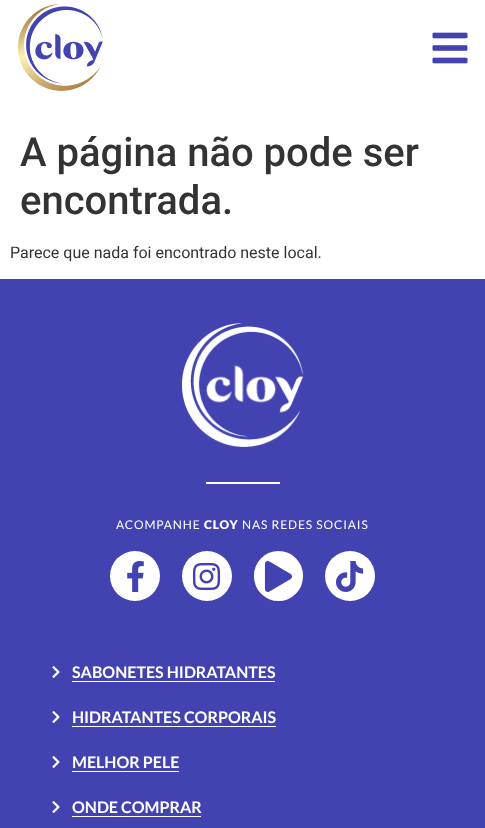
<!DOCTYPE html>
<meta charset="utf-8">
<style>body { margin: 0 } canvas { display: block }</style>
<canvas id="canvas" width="485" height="828"></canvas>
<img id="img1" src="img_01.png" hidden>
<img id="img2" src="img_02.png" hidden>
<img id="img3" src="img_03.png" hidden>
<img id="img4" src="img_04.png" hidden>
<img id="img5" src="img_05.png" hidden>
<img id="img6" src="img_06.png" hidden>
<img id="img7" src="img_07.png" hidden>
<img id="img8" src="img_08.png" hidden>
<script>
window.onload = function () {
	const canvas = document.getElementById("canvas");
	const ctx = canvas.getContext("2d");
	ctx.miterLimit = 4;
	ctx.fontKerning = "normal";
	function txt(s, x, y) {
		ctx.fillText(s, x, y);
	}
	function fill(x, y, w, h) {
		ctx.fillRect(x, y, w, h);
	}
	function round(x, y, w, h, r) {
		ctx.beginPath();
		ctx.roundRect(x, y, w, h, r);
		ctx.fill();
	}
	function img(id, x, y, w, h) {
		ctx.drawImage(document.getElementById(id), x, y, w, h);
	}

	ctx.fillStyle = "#FFFFFF";
	fill(0, 0, 485, 828);
	img("img1", 18, 4, 85, 87);
	img("img2", 432, 32, 36, 32);
	ctx.fillStyle = "#4243B1";
	fill(0, 279, 485, 549);
	img("img3", 182, 323, 121, 124);
	ctx.fillStyle = "#FFFFFF";
	fill(206, 482, 74, 2);
	ctx.beginPath();
	ctx.arc(135, 576, 25, 0, Math.PI * 2);
	ctx.fill();
	img("img4", 127, 561, 17, 31);
	ctx.beginPath();
	ctx.arc(207, 576, 25, 0, Math.PI * 2);
	ctx.fill();
	img("img5", 192, 562, 29, 29);
	round(254, 551, 49, 50, 24.5);
	img("img6", 264, 561, 29, 31);
	ctx.beginPath();
	ctx.arc(350, 576, 25, 0, Math.PI * 2);
	ctx.fill();
	img("img7", 335, 561, 29, 31);
	img("img8", 52, 666, 8, 12);
	fill(72, 681, 203, 1);
	img("img8", 52, 711, 8, 12);
	fill(72, 726, 204, 1);
	img("img8", 52, 756, 8, 12);
	fill(72, 771, 107, 1);
	img("img8", 52, 801, 8, 12);
	fill(72, 816, 129, 1);
	ctx.font = "500 40px Roboto";
	ctx.fillStyle = "#333333";
	txt("A página não pode ser", 20, 166);
	txt("encontrada.", 20, 214);
	ctx.font = "16px Roboto";
	txt("Parece que nada foi encontrado neste local.", 10, 258);
	ctx.letterSpacing = "0.9px";
	ctx.font = "12px Lato";
	ctx.fillStyle = "#FFFFFF";
	txt("ACOMPANHE", 116, 529);
	ctx.font = "900 12px Lato";
	txt("CLOY", 204, 529);
	ctx.font = "12px Lato";
	txt("NAS REDES SOCIAIS", 242, 529);
	ctx.letterSpacing = "0px";
	ctx.font = "bold 16px Lato";
	txt("SABONETES HIDRATANTES", 72, 678);
	txt("HIDRATANTES CORPORAIS", 72, 723);
	txt("MELHOR PELE", 72, 768);
	txt("ONDE COMPRAR", 72, 813);
};
</script>
